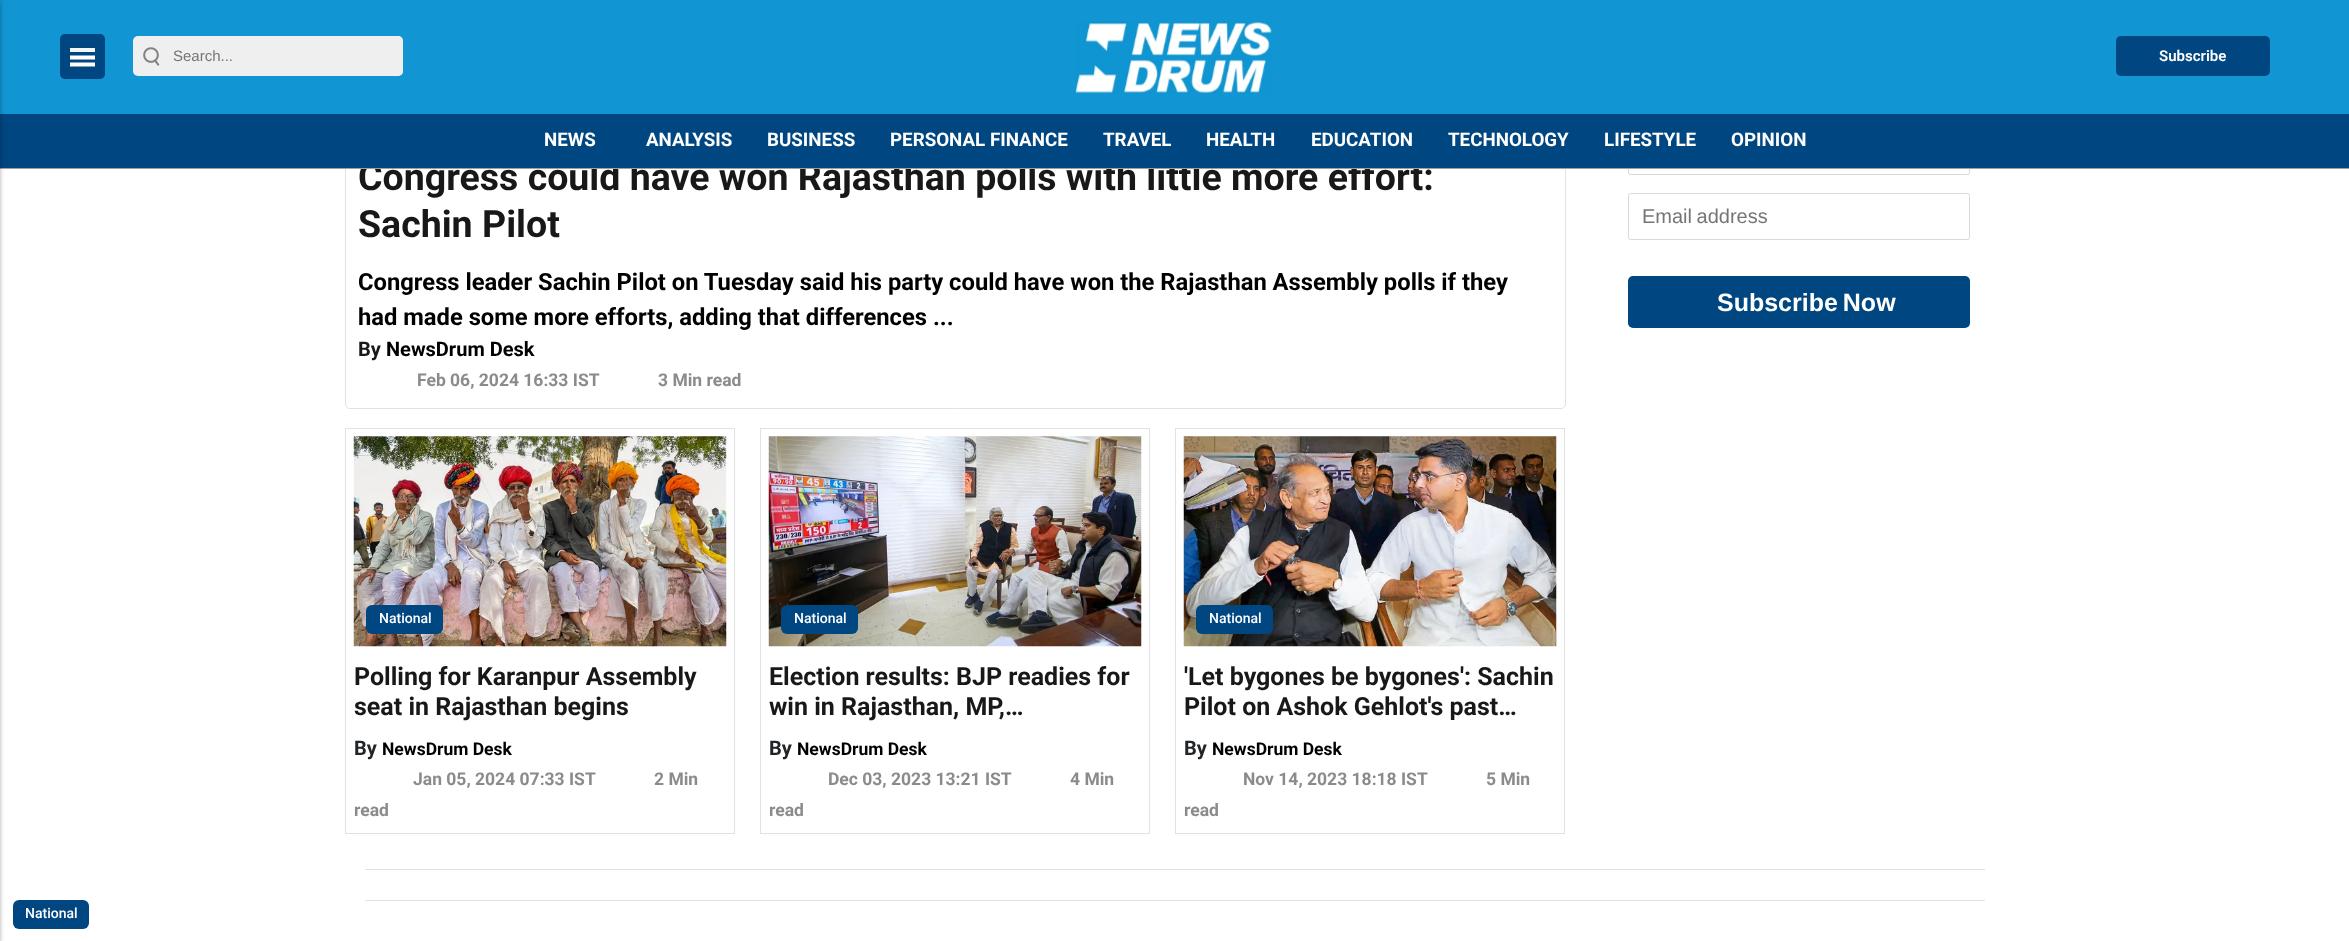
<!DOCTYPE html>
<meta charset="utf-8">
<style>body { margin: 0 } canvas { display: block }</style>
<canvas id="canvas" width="2349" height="941"></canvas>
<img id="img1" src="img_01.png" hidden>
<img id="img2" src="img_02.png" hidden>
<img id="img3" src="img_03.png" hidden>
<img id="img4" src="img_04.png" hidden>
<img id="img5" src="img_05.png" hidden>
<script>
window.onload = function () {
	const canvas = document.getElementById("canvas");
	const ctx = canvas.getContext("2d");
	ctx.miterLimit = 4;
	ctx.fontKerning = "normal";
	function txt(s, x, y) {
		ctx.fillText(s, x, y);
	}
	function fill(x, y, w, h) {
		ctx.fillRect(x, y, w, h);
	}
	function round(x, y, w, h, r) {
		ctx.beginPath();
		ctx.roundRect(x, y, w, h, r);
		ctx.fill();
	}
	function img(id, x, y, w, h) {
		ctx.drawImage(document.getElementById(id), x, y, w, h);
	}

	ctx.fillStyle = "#FFFFFF";
	fill(0, 0, 2349, 941);
	ctx.beginPath();
	ctx.roundRect(345.5, -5.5, 1220, 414, 4.5);
	ctx.strokeStyle = "#E2E2E2";
	ctx.stroke();
	ctx.fillStyle = "#1195D3";
	fill(0, 0, 2349, 114);
	ctx.fillStyle = "#004681";
	round(60, 34, 45, 45, 5);
	ctx.fillStyle = "#F2F6F9";
	fill(70, 48, 25, 4);
	ctx.beginPath();
	ctx.moveTo(70, 64.5);
	ctx.lineTo(95, 64.5);
	ctx.moveTo(70, 57.5);
	ctx.lineTo(95, 57.5);
	ctx.strokeStyle = "#FFFFFF";
	ctx.lineWidth = 3.8;
	ctx.stroke();
	ctx.fillStyle = "#EFEFEF";
	round(133, 36, 270, 40, 5);
	img("img1", 143, 47, 17, 19);
	round(170, 36, 233, 40, 5);
	img("img2", 1075, 21, 197, 73);
	ctx.fillStyle = "#004681";
	round(2116, 36, 154, 40, 5);
	round(13, 900, 76, 29, 6);
	ctx.strokeStyle = "#E2E2E2";
	ctx.lineWidth = 1;
	ctx.strokeRect(345.5, 428.5, 389, 405);
	img("img3", 353, 436, 374, 211);
	round(366, 605, 77, 29, 6);
	ctx.strokeRect(760.5, 428.5, 389, 405);
	img("img4", 768, 436, 374, 211);
	round(781, 605, 77, 29, 6);
	ctx.strokeRect(1175.5, 428.5, 389, 405);
	img("img5", 1183, 436, 374, 211);
	round(1196, 605, 77, 29, 6);
	ctx.beginPath();
	ctx.roundRect(1628.5, 128.5, 341, 46, 2);
	ctx.strokeStyle = "#D9D9D9";
	ctx.stroke();
	ctx.beginPath();
	ctx.roundRect(1628.5, 193.5, 341, 46, 2);
	ctx.stroke();
	round(1628, 276, 342, 52, 5);
	ctx.fillStyle = "#DEE2E6";
	fill(365, 869, 1620, 1);
	fill(365, 900, 1620, 1);
	ctx.font = "15px Liberation Sans";
	ctx.fillStyle = "#757575";
	txt("Search...", 173, 61);
	ctx.font = "600 15px Roboto";
	ctx.fillStyle = "#FFFFFF";
	txt("Subscribe", 2159, 61);
	ctx.font = "bold 37.5px Roboto";
	ctx.fillStyle = "#181818";
	txt("Congress could have won Rajasthan polls with little more effort:", 358, 190);
	ctx.fillStyle = "#A0A0A0";
	fill(0, 168, 2349, 1);
	ctx.fillStyle = "#004681";
	fill(0, 114, 2349, 54);
	ctx.fillStyle = "rgba(0, 0, 0, 0.12)";
	ctx.filter = "blur(2px)";
	ctx.beginPath();
	ctx.rect(-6, 0, 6, 941);
	ctx.fill();
	ctx.filter = "none";
	ctx.fillStyle = "rgba(0, 0, 0, 0.22)";
	ctx.filter = "blur(2px)";
	ctx.beginPath();
	ctx.rect(-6, 3, 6, 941);
	ctx.fill();
	ctx.filter = "none";
	ctx.font = "bold 18.75px Roboto";
	ctx.fillStyle = "#FFFFFF";
	txt("OPINION", 1731, 146);
	txt("LIFESTYLE", 1604, 146);
	txt("TECHNOLOGY", 1448, 146);
	txt("EDUCATION", 1311, 146);
	txt("HEALTH", 1206, 146);
	txt("TRAVEL", 1103, 146);
	txt("PERSONAL FINANCE", 890, 146);
	txt("BUSINESS", 767, 146);
	txt("ANALYSIS", 646, 146);
	txt("NEWS", 544, 146);
	ctx.font = "bold 37.5px Roboto";
	ctx.fillStyle = "#181818";
	txt("Sachin Pilot", 358, 237);
	ctx.font = "bold 23.75px Roboto";
	ctx.fillStyle = "#000000";
	txt("Congress leader Sachin Pilot on Tuesday said his party could have won the Rajasthan Assembly polls if they", 358, 290);
	txt("had made some more efforts, adding that differences ...", 358, 325);
	ctx.font = "bold 20px Roboto";
	ctx.fillStyle = "#181818";
	txt("By", 358, 356);
	ctx.fillStyle = "#000000";
	txt("NewsDrum Desk", 386, 356);
	ctx.font = "bold 17.5px Roboto";
	ctx.fillStyle = "#8B8B8B";
	txt("Feb 06, 2024 16:33 IST", 417, 386);
	txt("3 Min read", 658, 386);
	ctx.font = "500 14px Roboto";
	ctx.fillStyle = "#FFFFFF";
	txt("National", 25, 918);
	txt("National", 379, 623);
	ctx.font = "bold 25px Roboto";
	ctx.fillStyle = "#181818";
	txt("Polling for Karanpur Assembly", 354, 685);
	txt("seat in Rajasthan begins", 354, 715);
	ctx.font = "bold 20px Roboto";
	ctx.fillStyle = "#212529";
	txt("By", 354, 755);
	ctx.font = "bold 17.5px Roboto";
	ctx.fillStyle = "#000000";
	txt("NewsDrum Desk", 382, 755);
	ctx.fillStyle = "#8B8B8B";
	txt("Jan 05, 2024 07:33 IST", 413, 785);
	txt("2 Min", 654, 785);
	txt("read", 354, 816);
	ctx.font = "500 14px Roboto";
	ctx.fillStyle = "#FFFFFF";
	txt("National", 794, 623);
	ctx.font = "bold 25px Roboto";
	ctx.fillStyle = "#181818";
	txt("Election results: BJP readies for", 769, 685);
	txt("win in Rajasthan, MP,…", 769, 715);
	ctx.font = "bold 20px Roboto";
	ctx.fillStyle = "#212529";
	txt("By", 769, 755);
	ctx.font = "bold 17.5px Roboto";
	ctx.fillStyle = "#000000";
	txt("NewsDrum Desk", 797, 755);
	ctx.fillStyle = "#8B8B8B";
	txt("Dec 03, 2023 13:21 IST", 828, 785);
	txt("4 Min", 1070, 785);
	txt("read", 769, 816);
	ctx.font = "500 14px Roboto";
	ctx.fillStyle = "#FFFFFF";
	txt("National", 1209, 623);
	ctx.font = "bold 25px Roboto";
	ctx.fillStyle = "#181818";
	txt("'Let bygones be bygones': Sachin", 1184, 685);
	txt("Pilot on Ashok Gehlot's past…", 1184, 715);
	ctx.font = "bold 20px Roboto";
	ctx.fillStyle = "#212529";
	txt("By", 1184, 755);
	ctx.font = "bold 17.5px Roboto";
	ctx.fillStyle = "#000000";
	txt("NewsDrum Desk", 1212, 755);
	ctx.fillStyle = "#8B8B8B";
	txt("Nov 14, 2023 18:18 IST", 1243, 785);
	txt("5 Min", 1486, 785);
	txt("read", 1184, 816);
	ctx.wordSpacing = "-1px";
	ctx.font = "20px Liberation Sans";
	ctx.fillStyle = "#757575";
	txt("Email address", 1642, 223);
	ctx.wordSpacing = "-2px";
	ctx.font = "bold 25px Liberation Sans";
	ctx.fillStyle = "#FFFFFF";
	txt("Subscribe Now", 1717, 311);
};
</script>
